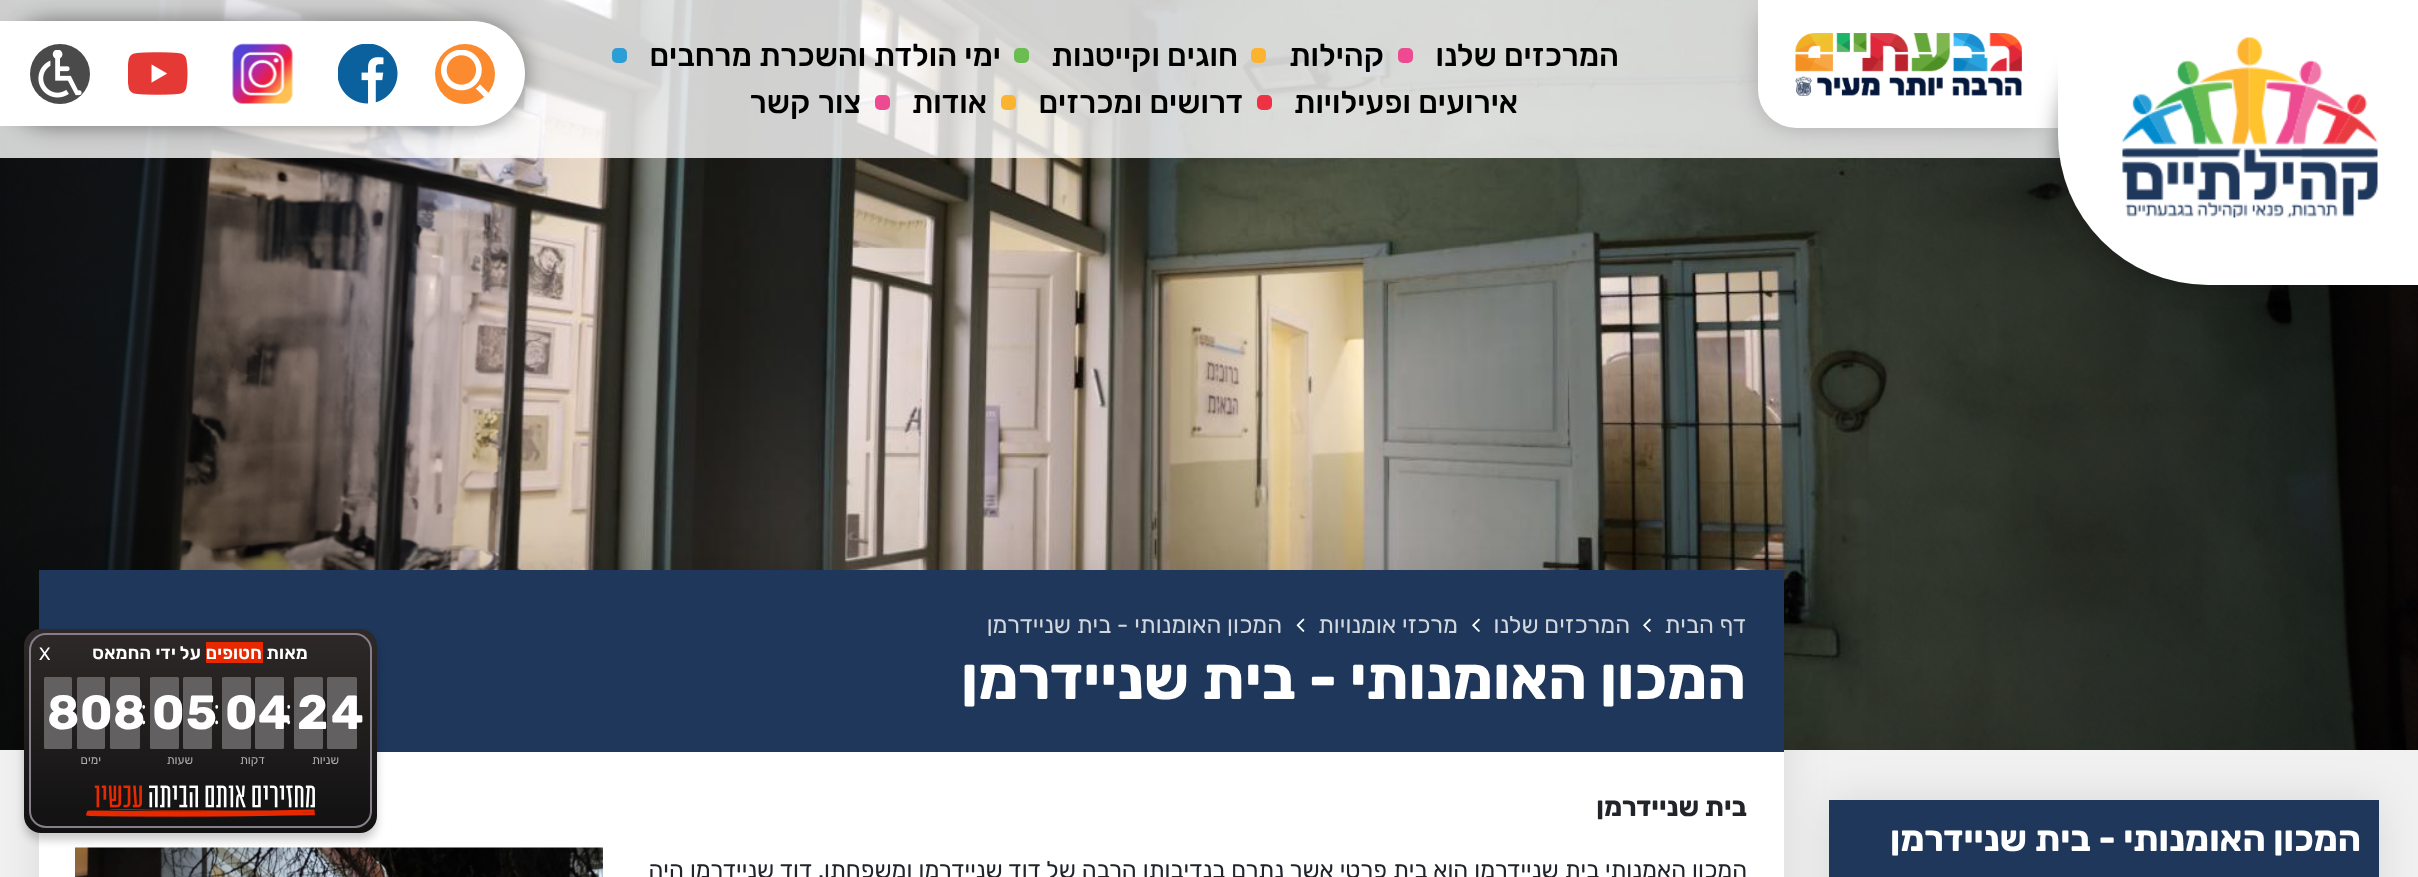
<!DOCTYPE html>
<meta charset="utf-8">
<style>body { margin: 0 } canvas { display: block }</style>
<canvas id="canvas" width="2418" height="877"></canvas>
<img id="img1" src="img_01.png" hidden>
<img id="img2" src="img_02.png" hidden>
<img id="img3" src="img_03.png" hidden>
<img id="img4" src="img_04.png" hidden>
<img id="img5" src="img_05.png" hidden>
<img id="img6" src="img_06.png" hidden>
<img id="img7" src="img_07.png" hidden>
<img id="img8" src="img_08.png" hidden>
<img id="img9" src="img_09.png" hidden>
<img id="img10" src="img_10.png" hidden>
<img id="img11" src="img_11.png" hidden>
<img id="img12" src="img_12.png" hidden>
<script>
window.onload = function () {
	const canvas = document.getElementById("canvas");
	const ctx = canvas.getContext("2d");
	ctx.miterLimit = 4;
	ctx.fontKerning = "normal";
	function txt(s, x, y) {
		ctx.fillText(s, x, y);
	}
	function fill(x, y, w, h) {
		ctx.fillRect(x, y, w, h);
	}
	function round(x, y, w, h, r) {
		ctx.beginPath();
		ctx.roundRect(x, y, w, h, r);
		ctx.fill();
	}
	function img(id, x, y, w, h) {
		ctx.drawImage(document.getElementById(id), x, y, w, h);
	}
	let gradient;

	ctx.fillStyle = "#F1F1F1";
	fill(0, 0, 2418, 877);
	img("img1", 0, 0, 2418, 750);
	ctx.fillStyle = "rgba(255, 255, 255, 0.8)";
	fill(0, 0, 2060, 158);
	ctx.fillStyle = "#AAAAAA";
	ctx.filter = "blur(11px)";
	ctx.beginPath();
	ctx.roundRect(1758, 0, 300, 128, 38);
	ctx.fill();
	ctx.filter = "none";
	ctx.fillStyle = "#FFFFFF";
	ctx.beginPath();
	ctx.roundRect(1758, 0, 300, 128, [0, 0, 0, 38]);
	ctx.fill();
	ctx.fillStyle = "rgba(17, 17, 17, 0.5)";
	ctx.filter = "blur(11px)";
	ctx.beginPath();
	ctx.roundRect(2058, 0, 360, 285, 150);
	ctx.fill();
	ctx.filter = "none";
	ctx.fillStyle = "#FFFFFF";
	ctx.beginPath();
	ctx.roundRect(2058, 0, 360, 285, [0, 0, 0, 150]);
	ctx.fill();
	img("img2", 2122, 37, 256, 181);
	img("img3", 1795, 33, 227, 63);
	ctx.fillStyle = "#EE4A91";
	round(1398, 48, 15, 15, 5);
	ctx.fillStyle = "#FCB330";
	round(1251, 48, 15, 15, 5);
	ctx.fillStyle = "#69BD51";
	round(1014, 48, 15, 15, 5);
	ctx.fillStyle = "#2B9ED8";
	round(612, 48, 15, 15, 5);
	ctx.fillStyle = "#EE3243";
	round(1257, 95, 15, 15, 5);
	ctx.fillStyle = "#FCB330";
	round(1001, 95, 15, 15, 5);
	ctx.fillStyle = "#EE4A91";
	round(875, 95, 15, 15, 5);
	ctx.fillStyle = "rgba(17, 17, 17, 0.5)";
	ctx.filter = "blur(11px)";
	ctx.beginPath();
	ctx.roundRect(0, 21, 525, 105, 52.5);
	ctx.fill();
	ctx.filter = "none";
	ctx.fillStyle = "#FFFFFF";
	ctx.beginPath();
	ctx.roundRect(0, 21, 525, 105, [0, 52.5, 52.5, 0]);
	ctx.fill();
	ctx.fillStyle = "#FC8B30";
	ctx.beginPath();
	ctx.arc(465, 74, 30, 0, Math.PI * 2);
	ctx.fill();
	img("img4", 441, 50, 48, 47);
	img("img5", 338, 44, 60, 60);
	img("img6", 232, 43, 61, 61);
	img("img7", 128, 52, 60, 43);
	ctx.fillStyle = "#4A4A4A";
	ctx.beginPath();
	ctx.arc(60, 74, 30, 0, Math.PI * 2);
	ctx.fill();
	img("img8", 38, 50, 44, 48);
	ctx.fillStyle = "rgba(0, 0, 0, 0.1)";
	ctx.filter = "blur(22.5px)";
	ctx.beginPath();
	ctx.rect(1829, 800, 550, 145);
	ctx.fill();
	ctx.filter = "none";
	ctx.fillStyle = "#1E375B";
	fill(1829, 800, 550, 77);
	ctx.fillStyle = "rgba(0, 0, 0, 0.1)";
	ctx.filter = "blur(22.5px)";
	ctx.beginPath();
	ctx.rect(39, 570, 1745, 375);
	ctx.fill();
	ctx.filter = "none";
	ctx.fillStyle = "#FFFFFF";
	fill(39, 752, 1745, 125);
	ctx.fillStyle = "#1E375B";
	fill(39, 570, 1745, 182);
	img("img9", 1643, 618, 8, 14);
	img("img9", 1472, 618, 8, 14);
	img("img10", 1296, 618, 9, 14);
	img("img11", 75, 847, 528, 30);
	ctx.fillStyle = "rgba(0, 0, 0, 0.2)";
	ctx.filter = "blur(4px)";
	ctx.beginPath();
	ctx.roundRect(24, 636, 353, 204, 17);
	ctx.fill();
	ctx.filter = "none";
	gradient = ctx.createLinearGradient(200, 629, 200, 833);
	gradient.addColorStop(0, "#2F2929");
	gradient.addColorStop(1, "#111111");
	ctx.fillStyle = gradient;
	round(24, 629, 353, 204, 17);
	ctx.beginPath();
	ctx.roundRect(30, 634, 341, 193, 16);
	ctx.strokeStyle = "#867F8A";
	ctx.lineWidth = 2;
	ctx.stroke();
	ctx.fillStyle = "#E82900";
	fill(206, 642, 57, 21);
	ctx.fillStyle = "#626060";
	round(327, 677, 30, 72, 1.5);
	round(294, 677, 29, 72, 1.5);
	round(255, 677, 29, 72, 1.5);
	round(222, 677, 29, 72, 1.5);
	round(183, 677, 29, 72, 1.5);
	round(150, 677, 29, 72, 1.5);
	round(110, 677, 30, 72, 1.5);
	round(77, 677, 28, 72, 1.5);
	round(44, 677, 28, 72, 1.5);
	img("img12", 86, 785, 229, 32);
	ctx.direction = "rtl";
	ctx.font = "500 31.5px Rubik";
	ctx.fillStyle = "#000000";
	txt("המרכזים שלנו", 1619, 66);
	txt("קהילות", 1384, 66);
	txt("חוגים וקייטנות", 1238, 66);
	txt("ימי הולדת והשכרת מרחבים", 1001, 66);
	txt("אירועים ופעילויות", 1518, 113);
	txt("דרושים ומכרזים", 1243, 113);
	txt("אודות", 987, 113);
	ctx.wordSpacing = "1px";
	txt("צור קשר", 861, 113);
	ctx.wordSpacing = "0px";
	ctx.font = "bold 36px Rubik";
	ctx.fillStyle = "#FFFFFF";
	txt("המכון האומנותי - בית שניידרמן", 2361, 851);
	ctx.font = "24px Rubik";
	ctx.fillStyle = "#D2D7DE";
	txt("דף הבית", 1746, 633);
	txt("המרכזים שלנו", 1630, 633);
	txt("מרכזי אומנויות", 1458, 633);
	txt("המכון האומנותי - בית שניידרמן", 1282, 633);
	ctx.font = "bold 60px Rubik";
	ctx.fillStyle = "#FFFFFF";
	txt("המכון האומנותי - בית שניידרמן", 1746, 699);
	ctx.font = "bold 27px Rubik";
	ctx.fillStyle = "#212529";
	txt("בית שניידרמן", 1747, 816);
	ctx.wordSpacing = "0.25px";
	ctx.font = "24px Rubik";
	txt("המכון האמנותי בית שניידרמן הוא בית פרטי אשר נתרם בנדיבותו הרבה של דוד שניידרמן ומשפחתו. דוד שניידרמן היה", 1747, 878);
	ctx.letterSpacing = "0.25px";
	ctx.wordSpacing = "0px";
	ctx.font = "600 18px Rubik";
	ctx.fillStyle = "#FFFFFF";
	txt("מאות", 308, 659);
	txt("חטופים", 262, 659);
	txt("על ידי החמאס", 201, 659);
	ctx.letterSpacing = "0px";
	ctx.direction = "ltr";
	ctx.font = "18px Rubik";
	txt("X", 39, 660);
	ctx.font = "bold 48px Rubik";
	txt("4", 331, 729);
	txt("2", 297, 729);
	ctx.direction = "rtl";
	ctx.font = "12px Rubik";
	ctx.fillStyle = "#AFAFAF";
	txt("שניות", 339, 764);
	ctx.direction = "ltr";
	ctx.font = "bold 48px Rubik";
	ctx.fillStyle = "#FFFFFF";
	txt("4", 258, 729);
	txt("0", 225, 729);
	ctx.direction = "rtl";
	ctx.font = "12px Rubik";
	ctx.fillStyle = "#AFAFAF";
	txt("דקות", 265, 764);
	ctx.direction = "ltr";
	ctx.font = "bold 48px Rubik";
	ctx.fillStyle = "#FFFFFF";
	txt("5", 186, 729);
	txt("0", 152, 729);
	ctx.direction = "rtl";
	ctx.font = "12px Rubik";
	ctx.fillStyle = "#AFAFAF";
	txt("שעות", 193, 764);
	ctx.direction = "ltr";
	ctx.font = "bold 48px Rubik";
	ctx.fillStyle = "#FFFFFF";
	txt("8", 113, 729);
	txt("0", 80, 729);
	txt("8", 47, 729);
	ctx.direction = "rtl";
	ctx.font = "12px Rubik";
	ctx.fillStyle = "#AFAFAF";
	txt("ימים", 101, 764);
	ctx.direction = "ltr";
	ctx.font = "300 36px Open Sans Condensed";
	ctx.fillStyle = "#FFFFFF";
	txt(":", 285, 724);
	txt(":", 213, 724);
	txt(":", 140, 724);
};
</script>
